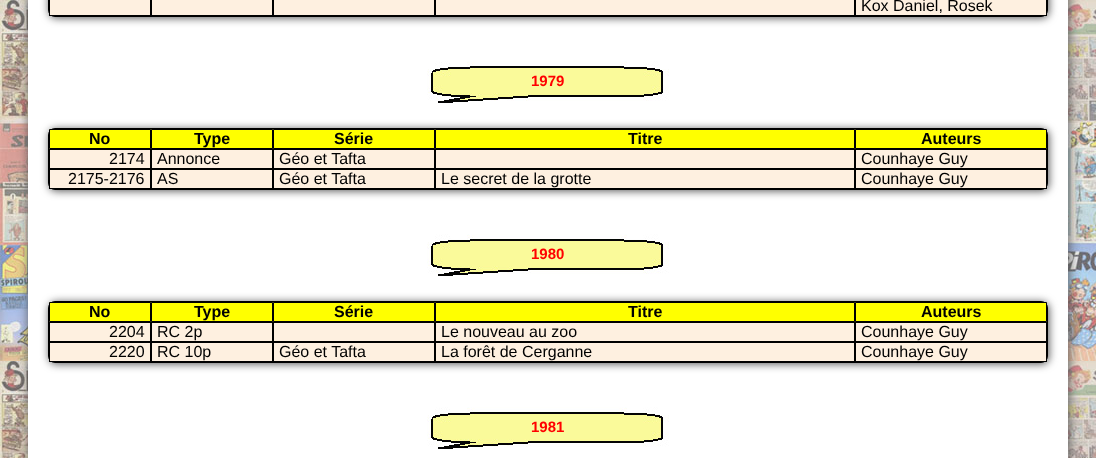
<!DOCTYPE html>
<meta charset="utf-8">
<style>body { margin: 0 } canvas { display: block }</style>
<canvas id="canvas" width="1096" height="458"></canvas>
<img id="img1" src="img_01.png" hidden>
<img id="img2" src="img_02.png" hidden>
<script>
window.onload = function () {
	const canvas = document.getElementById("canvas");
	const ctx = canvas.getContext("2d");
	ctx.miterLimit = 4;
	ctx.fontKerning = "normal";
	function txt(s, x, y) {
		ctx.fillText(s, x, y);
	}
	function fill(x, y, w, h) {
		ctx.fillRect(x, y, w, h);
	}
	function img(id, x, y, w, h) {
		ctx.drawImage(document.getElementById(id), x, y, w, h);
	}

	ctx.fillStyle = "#FFFFFF";
	fill(0, 0, 1096, 458);
	img("img1", 0, 0, 1096, 458);
	ctx.fillStyle = "#555555";
	ctx.filter = "blur(6px)";
	ctx.beginPath();
	ctx.roundRect(29, -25, 1040, 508, 7);
	ctx.fill();
	ctx.filter = "none";
	ctx.fillStyle = "#FFFFFF";
	fill(28, 0, 1040, 458);
	ctx.fillStyle = "#555555";
	ctx.filter = "blur(4px)";
	ctx.beginPath();
	ctx.roundRect(49, -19, 1000, 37, 7);
	ctx.fill();
	ctx.filter = "none";
	ctx.beginPath();
	ctx.roundRect(48.5, -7.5, 999, 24, 6.5);
	ctx.strokeStyle = "#000000";
	ctx.stroke();
	ctx.fillStyle = "#FEF0E0";
	fill(50, 0, 996, 15);
	ctx.strokeRect(49.5, -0.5, 101, 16);
	ctx.strokeRect(151.5, -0.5, 121, 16);
	ctx.strokeRect(273.5, -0.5, 161, 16);
	ctx.strokeRect(435.5, -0.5, 419, 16);
	ctx.strokeRect(855.5, -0.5, 191, 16);
	img("img2", 427, 61, 242, 42);
	ctx.fillStyle = "#555555";
	ctx.filter = "blur(4px)";
	ctx.beginPath();
	ctx.roundRect(49, 129, 1000, 62, 7);
	ctx.fill();
	ctx.filter = "none";
	ctx.beginPath();
	ctx.roundRect(48.5, 128.5, 999, 61, 6.5);
	ctx.stroke();
	ctx.fillStyle = "#FFFF00";
	ctx.beginPath();
	ctx.rect(49.5, 129.5, 101, 19);
	ctx.fill();
	ctx.stroke();
	ctx.beginPath();
	ctx.rect(151.5, 129.5, 121, 19);
	ctx.fill();
	ctx.stroke();
	ctx.beginPath();
	ctx.rect(273.5, 129.5, 161, 19);
	ctx.fill();
	ctx.stroke();
	ctx.beginPath();
	ctx.rect(435.5, 129.5, 419, 19);
	ctx.fill();
	ctx.stroke();
	ctx.beginPath();
	ctx.rect(855.5, 129.5, 191, 19);
	ctx.fill();
	ctx.stroke();
	ctx.fillStyle = "#FEF0E0";
	fill(50, 150, 996, 18);
	ctx.strokeRect(49.5, 149.5, 101, 19);
	ctx.strokeRect(151.5, 149.5, 121, 19);
	ctx.strokeRect(273.5, 149.5, 161, 19);
	ctx.strokeRect(435.5, 149.5, 419, 19);
	ctx.strokeRect(855.5, 149.5, 191, 19);
	fill(50, 170, 996, 18);
	ctx.strokeRect(49.5, 169.5, 101, 19);
	ctx.strokeRect(151.5, 169.5, 121, 19);
	ctx.strokeRect(273.5, 169.5, 161, 19);
	ctx.strokeRect(435.5, 169.5, 419, 19);
	ctx.strokeRect(855.5, 169.5, 191, 19);
	img("img2", 427, 234, 242, 42);
	ctx.fillStyle = "#555555";
	ctx.filter = "blur(4px)";
	ctx.beginPath();
	ctx.roundRect(49, 302, 1000, 62, 7);
	ctx.fill();
	ctx.filter = "none";
	ctx.beginPath();
	ctx.roundRect(48.5, 301.5, 999, 61, 6.5);
	ctx.stroke();
	ctx.fillStyle = "#FFFF00";
	ctx.beginPath();
	ctx.rect(49.5, 302.5, 101, 19);
	ctx.fill();
	ctx.stroke();
	ctx.beginPath();
	ctx.rect(151.5, 302.5, 121, 19);
	ctx.fill();
	ctx.stroke();
	ctx.beginPath();
	ctx.rect(273.5, 302.5, 161, 19);
	ctx.fill();
	ctx.stroke();
	ctx.beginPath();
	ctx.rect(435.5, 302.5, 419, 19);
	ctx.fill();
	ctx.stroke();
	ctx.beginPath();
	ctx.rect(855.5, 302.5, 191, 19);
	ctx.fill();
	ctx.stroke();
	ctx.fillStyle = "#FEF0E0";
	fill(50, 323, 996, 18);
	ctx.strokeRect(49.5, 322.5, 101, 19);
	ctx.strokeRect(151.5, 322.5, 121, 19);
	ctx.strokeRect(273.5, 322.5, 161, 19);
	ctx.strokeRect(435.5, 322.5, 419, 19);
	ctx.strokeRect(855.5, 322.5, 191, 19);
	fill(50, 343, 996, 18);
	ctx.strokeRect(49.5, 342.5, 101, 19);
	ctx.strokeRect(151.5, 342.5, 121, 19);
	ctx.strokeRect(273.5, 342.5, 161, 19);
	ctx.strokeRect(435.5, 342.5, 419, 19);
	ctx.strokeRect(855.5, 342.5, 191, 19);
	img("img2", 427, 407, 242, 42);
	ctx.font = "16px Liberation Sans";
	ctx.fillStyle = "#000000";
	txt("Kox Daniel, Rosek", 861, 11);
	ctx.font = "bold 15px Liberation Sans";
	ctx.fillStyle = "#FF0000";
	txt("1979", 531, 86);
	ctx.font = "bold 16px Liberation Sans";
	ctx.fillStyle = "#000000";
	txt("No", 89, 144);
	txt("Type", 194, 144);
	txt("Série", 334, 144);
	txt("Titre", 628, 144);
	txt("Auteurs", 921, 144);
	ctx.font = "16px Liberation Sans";
	txt("2174", 109, 164);
	txt("Annonce", 157, 164);
	txt("Géo et Tafta", 279, 164);
	txt("Counhaye Guy", 861, 164);
	txt("2175-2176", 68, 184);
	txt("AS", 157, 184);
	txt("Géo et Tafta", 279, 184);
	txt("Le secret de la grotte", 441, 184);
	txt("Counhaye Guy", 861, 184);
	ctx.font = "bold 15px Liberation Sans";
	ctx.fillStyle = "#FF0000";
	txt("1980", 531, 259);
	ctx.font = "bold 16px Liberation Sans";
	ctx.fillStyle = "#000000";
	txt("No", 89, 317);
	txt("Type", 194, 317);
	txt("Série", 334, 317);
	txt("Titre", 628, 317);
	txt("Auteurs", 921, 317);
	ctx.font = "16px Liberation Sans";
	txt("2204", 109, 337);
	txt("RC 2p", 157, 337);
	txt("Le nouveau au zoo", 441, 337);
	txt("Counhaye Guy", 861, 337);
	txt("2220", 109, 357);
	txt("RC 10p", 157, 357);
	txt("Géo et Tafta", 279, 357);
	txt("La forêt de Cerganne", 441, 357);
	txt("Counhaye Guy", 861, 357);
	ctx.font = "bold 15px Liberation Sans";
	ctx.fillStyle = "#FF0000";
	txt("1981", 531, 432);
};
</script>
